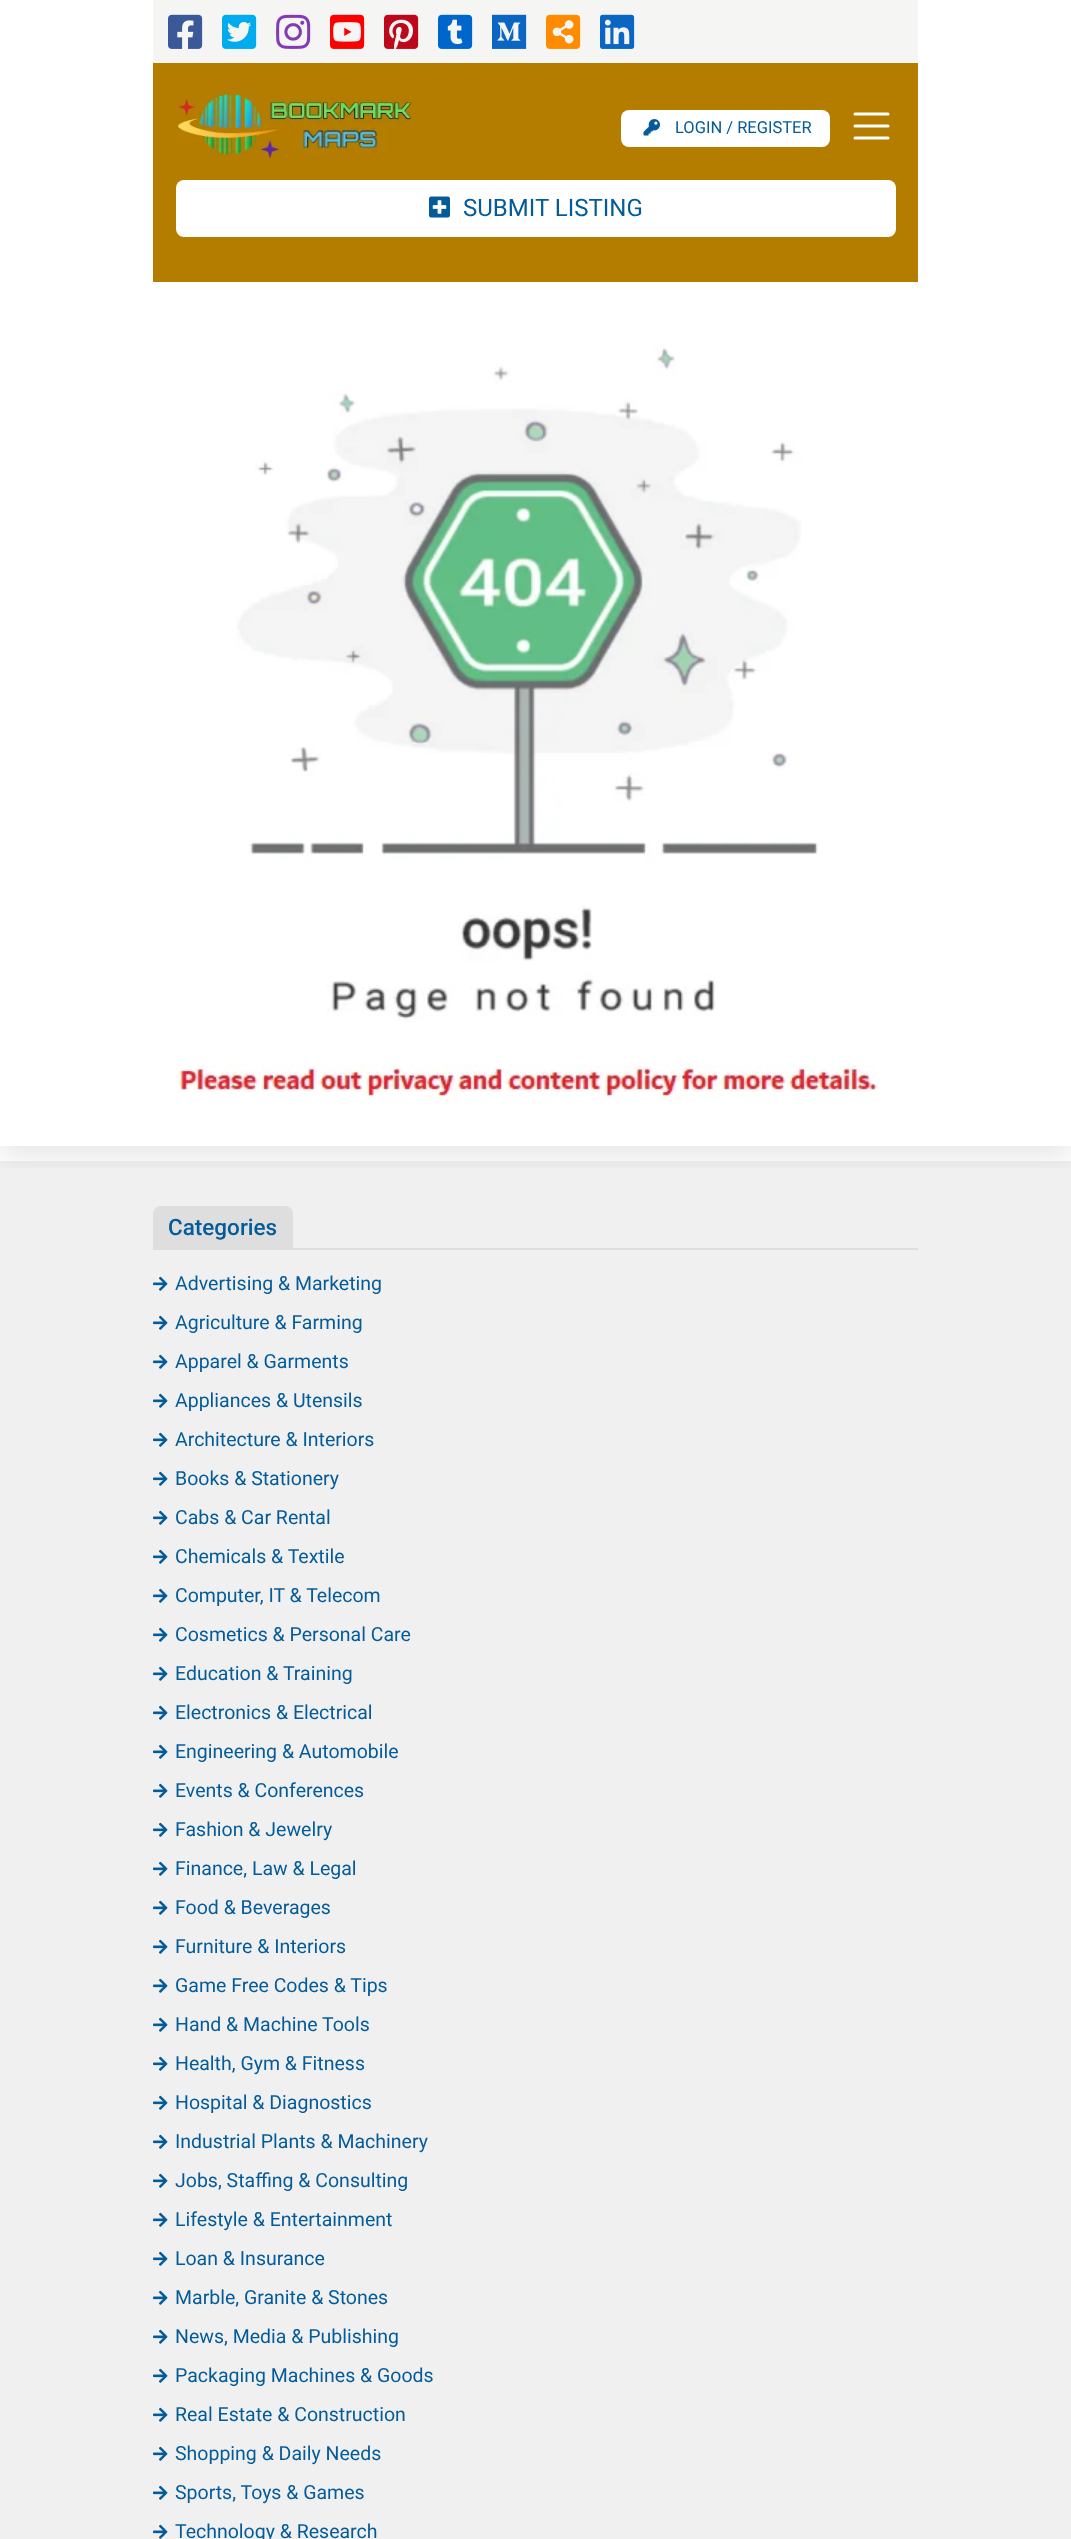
<!DOCTYPE html>
<meta charset="utf-8">
<style>body { margin: 0 } canvas { display: block }</style>
<canvas id="canvas" width="1071" height="2539"></canvas>
<img id="img1" src="img_01.png" hidden>
<img id="img2" src="img_02.png" hidden>
<img id="img3" src="img_03.png" hidden>
<img id="img4" src="img_04.png" hidden>
<img id="img5" src="img_05.png" hidden>
<img id="img6" src="img_06.png" hidden>
<img id="img7" src="img_07.png" hidden>
<img id="img8" src="img_08.png" hidden>
<img id="img9" src="img_09.png" hidden>
<img id="img10" src="img_10.png" hidden>
<img id="img11" src="img_11.png" hidden>
<img id="img12" src="img_12.png" hidden>
<img id="img13" src="img_13.png" hidden>
<img id="img14" src="img_14.png" hidden>
<script>
window.onload = function () {
	const canvas = document.getElementById("canvas");
	const ctx = canvas.getContext("2d");
	ctx.miterLimit = 4;
	ctx.fontKerning = "normal";
	function txt(s, x, y) {
		ctx.fillText(s, x, y);
	}
	function fill(x, y, w, h) {
		ctx.fillRect(x, y, w, h);
	}
	function round(x, y, w, h, r) {
		ctx.beginPath();
		ctx.roundRect(x, y, w, h, r);
		ctx.fill();
	}
	function img(id, x, y, w, h) {
		ctx.drawImage(document.getElementById(id), x, y, w, h);
	}

	ctx.fillStyle = "#FFFFFF";
	fill(0, 0, 1071, 2539);
	ctx.fillStyle = "#F5F5F4";
	fill(153, 0, 765, 63);
	img("img1", 168, 14, 35, 35);
	img("img2", 222, 14, 35, 35);
	img("img3", 276, 14, 35, 35);
	img("img4", 330, 14, 35, 35);
	img("img5", 384, 14, 35, 35);
	img("img6", 438, 14, 35, 35);
	img("img7", 492, 14, 35, 35);
	img("img8", 546, 14, 35, 35);
	img("img9", 600, 14, 35, 35);
	ctx.fillStyle = "#F0F0F0";
	fill(0, 1161, 1071, 1378);
	ctx.save();
	ctx.beginPath();
	ctx.rect(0, 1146, 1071, 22);
	ctx.clip();
	ctx.fillStyle = "rgba(0, 0, 0, 0.09)";
	ctx.filter = "blur(13.5px)";
	ctx.beginPath();
	ctx.rect(0, 294, 1071, 864);
	ctx.fill();
	ctx.filter = "none";
	ctx.restore();
	ctx.fillStyle = "#B47D00";
	fill(153, 63, 765, 219);
	img("img10", 176, 92, 238, 71);
	ctx.fillStyle = "#FFFFFF";
	round(621, 110, 209, 37, 8);
	img("img11", 643, 119, 17, 17);
	ctx.beginPath();
	ctx.moveTo(855, 114);
	ctx.lineTo(888, 114);
	ctx.moveTo(855, 126);
	ctx.lineTo(888, 126);
	ctx.moveTo(855, 138);
	ctx.lineTo(888, 138);
	ctx.strokeStyle = "#FFFFFF";
	ctx.lineWidth = 3;
	ctx.lineCap = "round";
	ctx.stroke();
	round(176, 180, 720, 57, 8);
	img("img12", 429, 196, 21, 22);
	img("img13", 177, 345, 701, 757);
	ctx.fillStyle = "#DEDEDE";
	fill(153, 1248, 765, 2);
	ctx.beginPath();
	ctx.roundRect(153, 1206, 140, 42, [8, 8, 0, 0]);
	ctx.fill();
	img("img14", 153, 1276, 15, 15);
	img("img14", 153, 1315, 15, 15);
	img("img14", 153, 1354, 15, 15);
	img("img14", 153, 1393, 15, 15);
	img("img14", 153, 1432, 15, 15);
	img("img14", 153, 1471, 15, 15);
	img("img14", 153, 1510, 15, 15);
	img("img14", 153, 1549, 15, 15);
	img("img14", 153, 1588, 15, 15);
	img("img14", 153, 1627, 15, 15);
	img("img14", 153, 1666, 15, 15);
	img("img14", 153, 1705, 15, 15);
	img("img14", 153, 1744, 15, 15);
	img("img14", 153, 1783, 15, 15);
	img("img14", 153, 1822, 15, 15);
	img("img14", 153, 1861, 15, 15);
	img("img14", 153, 1900, 15, 15);
	img("img14", 153, 1939, 15, 15);
	img("img14", 153, 1978, 15, 15);
	img("img14", 153, 2017, 15, 15);
	img("img14", 153, 2056, 15, 15);
	img("img14", 153, 2095, 15, 15);
	img("img14", 153, 2134, 15, 15);
	img("img14", 153, 2173, 15, 15);
	img("img14", 153, 2212, 15, 15);
	img("img14", 153, 2251, 15, 15);
	img("img14", 153, 2290, 15, 15);
	img("img14", 153, 2329, 15, 15);
	img("img14", 153, 2368, 15, 15);
	img("img14", 153, 2407, 15, 15);
	img("img14", 153, 2446, 15, 15);
	img("img14", 153, 2485, 15, 15);
	img("img14", 153, 2524, 15, 15);
	ctx.font = "16.5px Roboto";
	ctx.fillStyle = "#045B99";
	txt("LOGIN / REGISTER", 675, 133);
	ctx.font = "24px Roboto";
	txt("SUBMIT LISTING", 463, 216);
	ctx.font = "500 22.5px Roboto";
	txt("Categories", 168, 1235);
	ctx.font = "19.5px Roboto";
	txt("Advertising & Marketing", 175, 1290);
	txt("Agriculture & Farming", 175, 1329);
	txt("Apparel & Garments", 175, 1368);
	txt("Appliances & Utensils", 175, 1407);
	txt("Architecture & Interiors", 175, 1446);
	txt("Books & Stationery", 175, 1485);
	txt("Cabs & Car Rental", 175, 1524);
	txt("Chemicals & Textile", 175, 1563);
	txt("Computer, IT & Telecom", 175, 1602);
	txt("Cosmetics & Personal Care", 175, 1641);
	txt("Education & Training", 175, 1680);
	txt("Electronics & Electrical", 175, 1719);
	txt("Engineering & Automobile", 175, 1758);
	txt("Events & Conferences", 175, 1797);
	txt("Fashion & Jewelry", 175, 1836);
	txt("Finance, Law & Legal", 175, 1875);
	txt("Food & Beverages", 175, 1914);
	txt("Furniture & Interiors", 175, 1953);
	txt("Game Free Codes & Tips", 175, 1992);
	txt("Hand & Machine Tools", 175, 2031);
	txt("Health, Gym & Fitness", 175, 2070);
	txt("Hospital & Diagnostics", 175, 2109);
	txt("Industrial Plants & Machinery", 175, 2148);
	txt("Jobs, Staffing & Consulting", 175, 2187);
	txt("Lifestyle & Entertainment", 175, 2226);
	txt("Loan & Insurance", 175, 2265);
	txt("Marble, Granite & Stones", 175, 2304);
	txt("News, Media & Publishing", 175, 2343);
	txt("Packaging Machines & Goods", 175, 2382);
	txt("Real Estate & Construction", 175, 2421);
	txt("Shopping & Daily Needs", 175, 2460);
	txt("Sports, Toys & Games", 175, 2499);
	txt("Technology & Research", 175, 2538);
};
</script>
